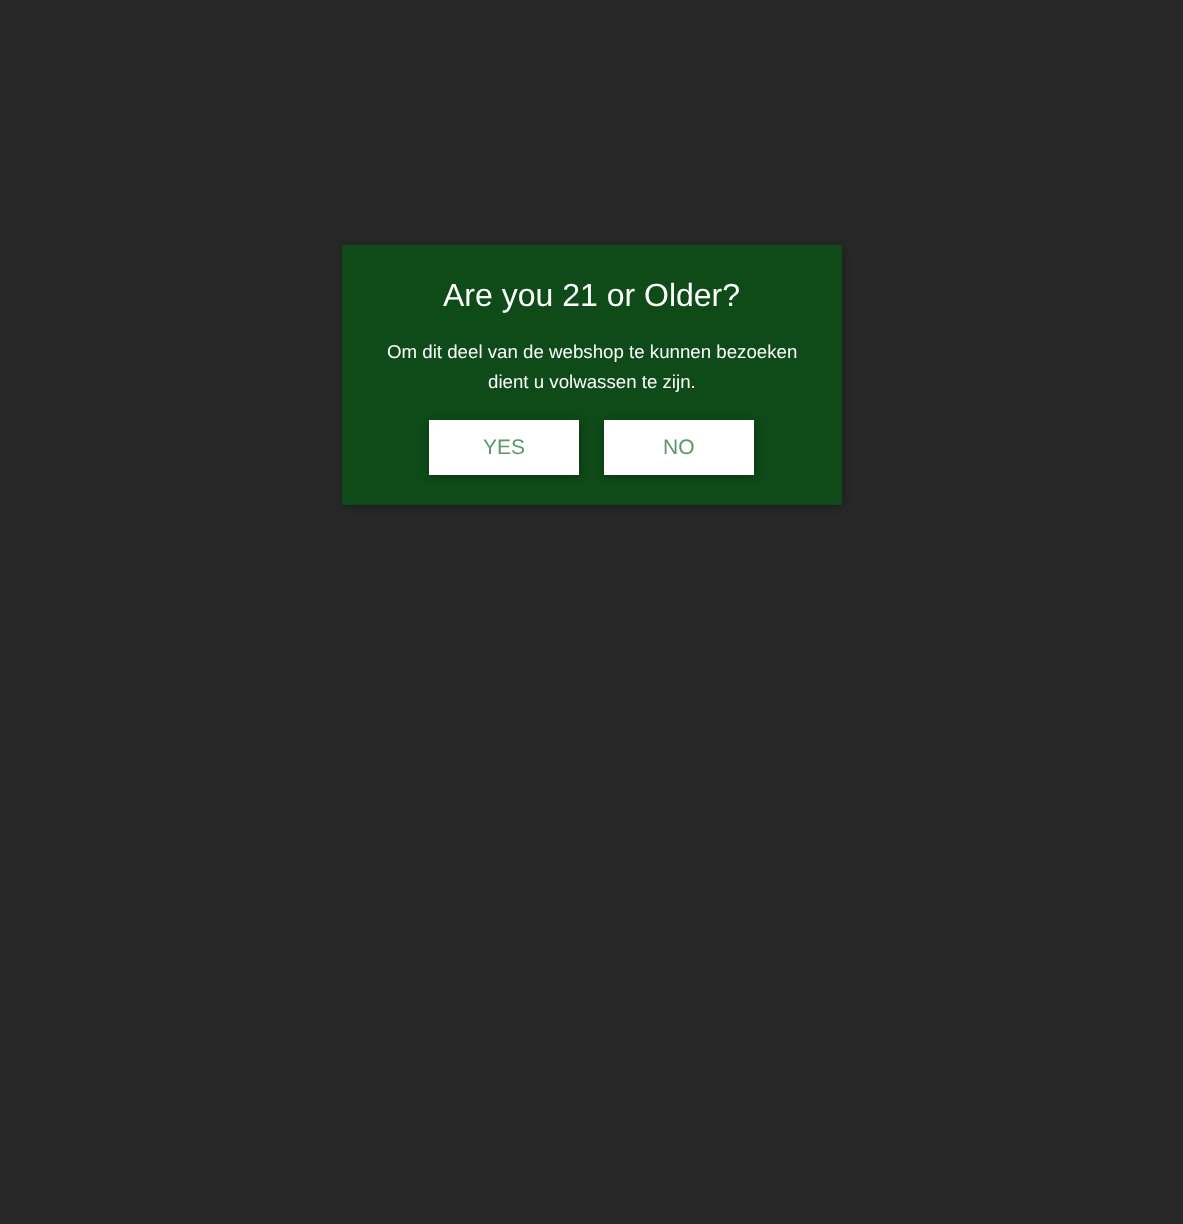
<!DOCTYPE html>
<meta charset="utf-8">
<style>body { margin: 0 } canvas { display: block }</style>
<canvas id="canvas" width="1183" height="1224"></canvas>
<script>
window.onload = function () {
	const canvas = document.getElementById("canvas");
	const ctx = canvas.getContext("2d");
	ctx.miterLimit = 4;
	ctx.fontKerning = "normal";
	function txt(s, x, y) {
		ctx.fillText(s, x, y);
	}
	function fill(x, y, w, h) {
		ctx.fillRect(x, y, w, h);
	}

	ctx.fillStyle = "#282828";
	fill(0, 0, 1183, 1224);
	ctx.fillStyle = "rgba(0, 0, 0, 0.3)";
	ctx.filter = "blur(4.5px)";
	ctx.beginPath();
	ctx.rect(343, 247, 500, 260);
	ctx.fill();
	ctx.filter = "none";
	ctx.fillStyle = "#0E4B18";
	fill(342, 245, 500, 260);
	ctx.fillStyle = "rgba(0, 0, 0, 0.3)";
	ctx.filter = "blur(4.5px)";
	ctx.beginPath();
	ctx.rect(430, 422, 150, 55);
	ctx.fill();
	ctx.filter = "none";
	ctx.fillStyle = "#FFFFFF";
	fill(429, 420, 150, 55);
	ctx.fillStyle = "rgba(0, 0, 0, 0.3)";
	ctx.filter = "blur(4.5px)";
	ctx.beginPath();
	ctx.rect(605, 422, 150, 55);
	ctx.fill();
	ctx.filter = "none";
	ctx.fillStyle = "#FFFFFF";
	fill(604, 420, 150, 55);
	ctx.font = "32px Liberation Sans";
	txt("Are you 21 or Older?", 443, 306);
	ctx.font = "18.7px Liberation Sans";
	txt("Om dit deel van de webshop te kunnen bezoeken", 387, 358);
	txt("dient u volwassen te zijn.", 488, 388);
	ctx.font = "21px Liberation Sans";
	ctx.fillStyle = "#5C9865";
	txt("YES", 483, 454);
	txt("NO", 663, 454);
};
</script>
